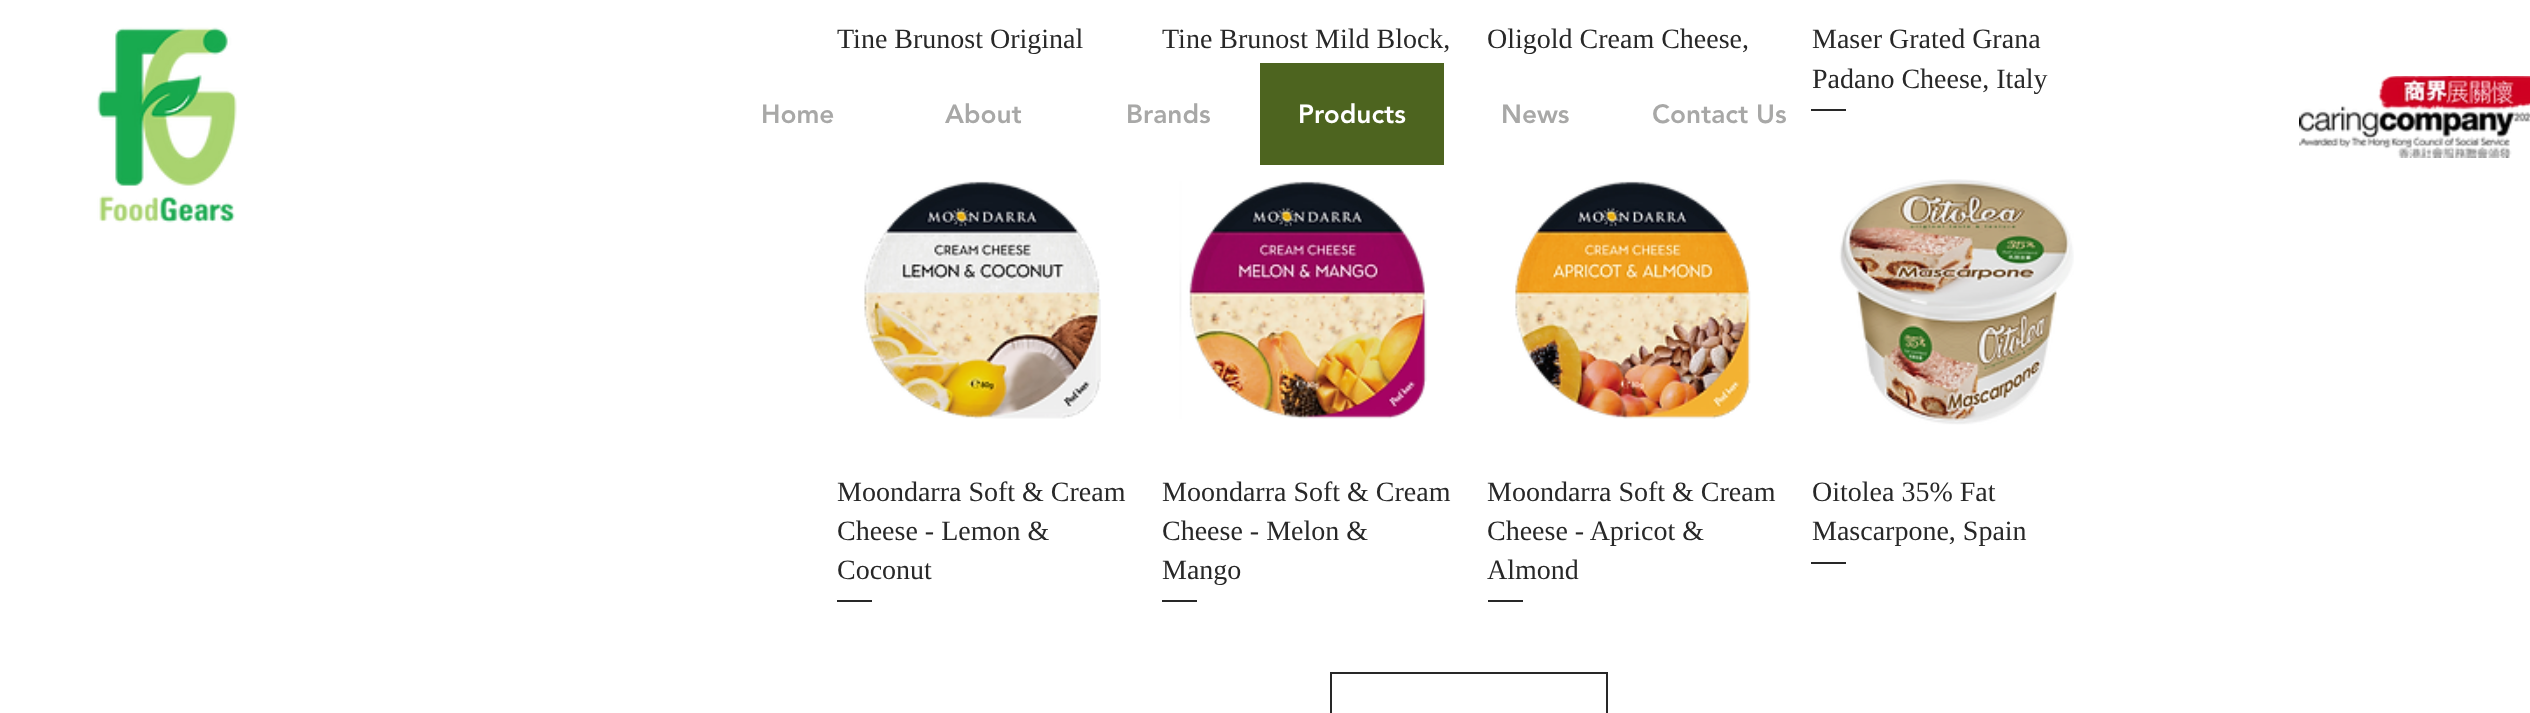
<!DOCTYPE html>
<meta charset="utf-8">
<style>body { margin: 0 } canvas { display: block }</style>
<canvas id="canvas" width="2530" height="713"></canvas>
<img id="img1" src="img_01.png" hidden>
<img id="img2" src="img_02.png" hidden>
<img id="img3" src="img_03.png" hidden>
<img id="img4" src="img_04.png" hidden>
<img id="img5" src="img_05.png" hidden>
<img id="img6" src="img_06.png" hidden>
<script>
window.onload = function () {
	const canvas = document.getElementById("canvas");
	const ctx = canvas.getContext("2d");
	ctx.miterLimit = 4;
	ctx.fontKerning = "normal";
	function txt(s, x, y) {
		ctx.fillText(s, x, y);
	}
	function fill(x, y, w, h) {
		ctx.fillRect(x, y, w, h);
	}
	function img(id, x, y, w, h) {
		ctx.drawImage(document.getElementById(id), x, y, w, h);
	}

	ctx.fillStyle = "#FFFFFF";
	fill(0, 0, 2530, 713);
	img("img1", 97, 27, 140, 196);
	ctx.fillStyle = "#282828";
	fill(1811, 109, 35, 2);
	img("img2", 864, 181, 237, 238);
	fill(837, 600, 35, 2);
	img("img3", 1179, 181, 248, 238);
	fill(1162, 600, 35, 2);
	img("img4", 1515, 181, 236, 238);
	fill(1488, 600, 35, 2);
	img("img5", 1839, 179, 235, 246);
	fill(1811, 562, 35, 2);
	ctx.strokeStyle = "#282828";
	ctx.lineWidth = 2;
	ctx.strokeRect(1331, 673, 276, 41);
	ctx.fillStyle = "#4D641F";
	fill(1260, 63, 184, 102);
	img("img6", 2299, 76, 231, 82);
	ctx.font = "28px Liberation Serif";
	ctx.fillStyle = "#282828";
	txt("Tine Brunost Original", 837, 48);
	txt("Tine Brunost Mild Block,", 1162, 48);
	txt("Oligold Cream Cheese,", 1487, 48);
	txt("Maser Grated Grana", 1812, 48);
	txt("Padano Cheese, Italy", 1812, 88);
	txt("Moondarra Soft & Cream", 837, 501);
	txt("Cheese - Lemon &", 837, 540);
	txt("Coconut", 837, 579);
	txt("Moondarra Soft & Cream", 1162, 501);
	txt("Cheese - Melon &", 1162, 540);
	txt("Mango", 1162, 579);
	txt("Moondarra Soft & Cream", 1487, 501);
	txt("Cheese - Apricot &", 1487, 540);
	txt("Almond", 1487, 579);
	txt("Oitolea 35% Fat", 1812, 501);
	txt("Mascarpone, Spain", 1812, 540);
	ctx.font = "900 26.25px 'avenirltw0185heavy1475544'";
	ctx.fillStyle = "#A8A8A7";
	txt("Home", 761, 123);
	txt("About", 945, 123);
	txt("Brands", 1126, 123);
	ctx.fillStyle = "#FFFFFF";
	txt("Products", 1298, 123);
	ctx.fillStyle = "#A8A8A7";
	txt("News", 1501, 123);
	txt("Contact Us", 1652, 123);
};
</script>
